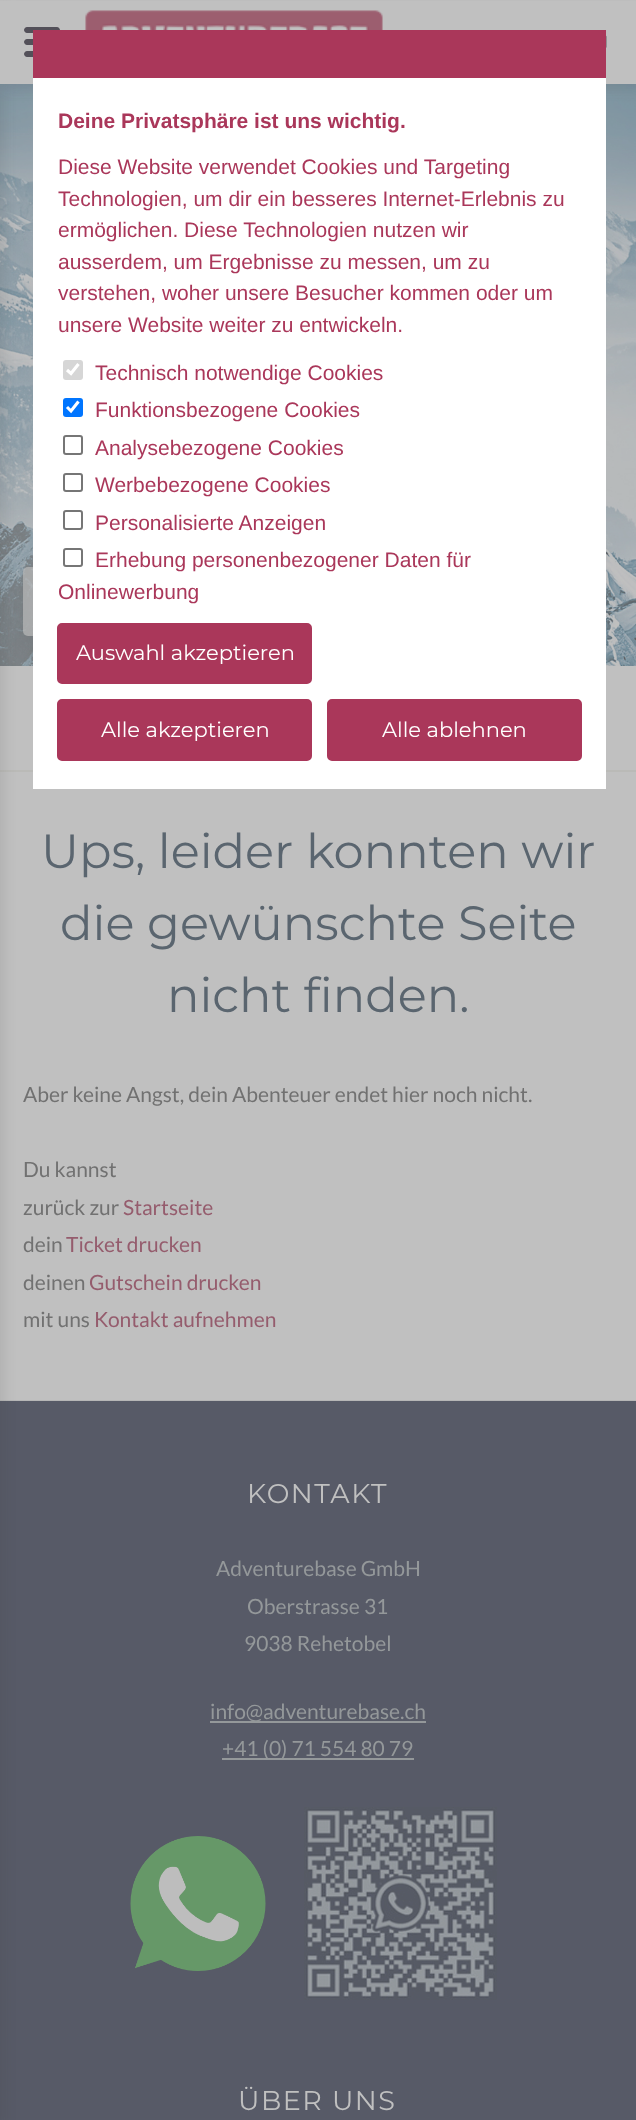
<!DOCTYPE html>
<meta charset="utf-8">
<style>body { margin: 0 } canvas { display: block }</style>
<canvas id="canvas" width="636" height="2120"></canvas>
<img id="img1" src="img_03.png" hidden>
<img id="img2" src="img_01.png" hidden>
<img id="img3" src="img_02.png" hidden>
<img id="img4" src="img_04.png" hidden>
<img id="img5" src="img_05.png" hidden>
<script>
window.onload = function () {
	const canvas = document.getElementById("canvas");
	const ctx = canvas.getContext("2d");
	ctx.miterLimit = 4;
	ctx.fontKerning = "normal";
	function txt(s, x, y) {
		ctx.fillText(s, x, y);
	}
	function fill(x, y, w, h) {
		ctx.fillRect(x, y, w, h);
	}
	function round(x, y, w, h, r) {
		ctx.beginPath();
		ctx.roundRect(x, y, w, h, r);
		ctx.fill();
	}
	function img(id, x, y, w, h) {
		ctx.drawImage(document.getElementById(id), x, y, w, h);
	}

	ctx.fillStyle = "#C0C0C0";
	fill(0, 0, 636, 2120);
	img("img1", 0, 84, 636, 582);
	ctx.fillStyle = "rgba(64, 64, 64, 0.11)";
	ctx.filter = "blur(6px)";
	ctx.beginPath();
	ctx.rect(5, 6, 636, 84);
	ctx.fill();
	ctx.filter = "none";
	ctx.save();
	ctx.beginPath();
	ctx.rect(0, 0, 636, 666);
	ctx.clip();
	ctx.beginPath();
	ctx.moveTo(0, 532);
	ctx.lineTo(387, 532);
	ctx.lineTo(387, 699);
	ctx.lineTo(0, 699);
	ctx.closePath();
	ctx.moveTo(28, 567);
	ctx.lineTo(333, 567);
	ctx.bezierCurveTo(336, 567, 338, 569, 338, 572);
	ctx.lineTo(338, 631);
	ctx.bezierCurveTo(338, 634, 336, 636, 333, 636);
	ctx.lineTo(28, 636);
	ctx.bezierCurveTo(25, 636, 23, 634, 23, 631);
	ctx.lineTo(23, 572);
	ctx.bezierCurveTo(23, 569, 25, 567, 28, 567);
	ctx.closePath();
	ctx.clip("evenodd");
	ctx.fillStyle = "rgba(64, 64, 64, 0.15)";
	ctx.filter = "blur(16px)";
	ctx.beginPath();
	ctx.roundRect(23, 581, 315, 69, 5);
	ctx.fill();
	ctx.filter = "none";
	ctx.restore();
	ctx.fillStyle = "rgba(183, 183, 183, 0.73)";
	round(23, 567, 315, 69, 5);
	ctx.fillStyle = "#BABAB7";
	fill(0, 770, 636, 2);
	ctx.fillStyle = "#B6B6B6";
	fill(0, 1400, 636, 1);
	ctx.fillStyle = "#575A67";
	fill(0, 1401, 636, 719);
	ctx.fillStyle = "rgba(64, 64, 64, 0.11)";
	ctx.filter = "blur(6px)";
	ctx.beginPath();
	ctx.rect(-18, 6, 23, 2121);
	ctx.fill();
	ctx.filter = "none";
	ctx.fillStyle = "#C0C0C0";
	fill(0, 1, 636, 83);
	ctx.fillStyle = "#FFFFFF";
	fill(33, 78, 573, 711);
	ctx.fillStyle = "#535059";
	ctx.beginPath();
	ctx.moveTo(57, 45);
	ctx.lineTo(27, 45);
	ctx.bezierCurveTo(25.5, 45, 24, 43.5, 24, 42);
	ctx.bezierCurveTo(24, 40.5, 25.5, 39, 27, 39);
	ctx.lineTo(57, 39);
	ctx.bezierCurveTo(58.5, 39, 60, 40.5, 60, 42);
	ctx.bezierCurveTo(60, 43.5, 58.5, 45, 57, 45);
	ctx.closePath();
	ctx.moveTo(57, 57);
	ctx.lineTo(27, 57);
	ctx.bezierCurveTo(25.5, 57, 24, 55.5, 24, 54);
	ctx.bezierCurveTo(24, 52.5, 25.5, 51, 27, 51);
	ctx.lineTo(57, 51);
	ctx.bezierCurveTo(58.5, 51, 60, 52.5, 60, 54);
	ctx.bezierCurveTo(60, 55.5, 58.5, 57, 57, 57);
	ctx.closePath();
	ctx.moveTo(57, 33);
	ctx.lineTo(27, 33);
	ctx.bezierCurveTo(25.5, 33, 24, 31.5, 24, 30);
	ctx.bezierCurveTo(24, 28.5, 25.5, 27, 27, 27);
	ctx.lineTo(57, 27);
	ctx.bezierCurveTo(58.5, 27, 60, 28.5, 60, 30);
	ctx.bezierCurveTo(60, 31.5, 58.5, 33, 57, 33);
	ctx.closePath();
	ctx.fill();
	ctx.fillStyle = "#AA375A";
	fill(33, 30, 573, 48);
	ctx.fillStyle = "#D6D6D6";
	round(63, 360, 20, 20, 3);
	ctx.beginPath();
	ctx.moveTo(67, 370);
	ctx.lineTo(71, 373.5);
	ctx.lineTo(78.5, 364);
	ctx.strokeStyle = "#FFFFFF";
	ctx.lineWidth = 3.1;
	ctx.stroke();
	ctx.fillStyle = "#0075FF";
	round(63, 398, 20, 19, 3);
	ctx.beginPath();
	ctx.moveTo(67, 407);
	ctx.lineTo(71, 411);
	ctx.lineTo(78.5, 401.5);
	ctx.stroke();
	ctx.beginPath();
	ctx.roundRect(64, 436, 18, 18, 2);
	ctx.strokeStyle = "#767676";
	ctx.lineWidth = 2;
	ctx.stroke();
	ctx.beginPath();
	ctx.roundRect(64, 474, 18, 17, 2);
	ctx.stroke();
	ctx.beginPath();
	ctx.roundRect(64, 511, 18, 18, 2);
	ctx.stroke();
	ctx.beginPath();
	ctx.roundRect(64, 549, 18, 17, 2);
	ctx.stroke();
	ctx.fillStyle = "#AA375A";
	ctx.beginPath();
	ctx.roundRect(59.5, 625.5, 250, 56, 2.5);
	ctx.fill();
	ctx.strokeStyle = "#AA375A";
	ctx.lineWidth = 5;
	ctx.stroke();
	ctx.beginPath();
	ctx.roundRect(59.5, 701.5, 250, 57, 2.5);
	ctx.fill();
	ctx.stroke();
	ctx.beginPath();
	ctx.roundRect(329.5, 701.5, 250, 57, 2.5);
	ctx.fill();
	ctx.stroke();
	img("img2", 606, 35, 1, 13);
	img("img3", 85, 10, 298, 20);
	ctx.fillStyle = "#94989A";
	fill(210, 1721, 216, 2);
	fill(222, 1758, 192, 2);
	img("img4", 130, 1836, 136, 135);
	img("img5", 304, 1807, 193, 193);
	ctx.font = "bold 21px Liberation Sans";
	ctx.fillStyle = "#AA375A";
	txt("Deine Privatsphäre ist uns wichtig.", 58, 128);
	ctx.font = "21px Liberation Sans";
	txt("Diese Website verwendet Cookies und Targeting", 58, 174);
	txt("Technologien, um dir ein besseres Internet-Erlebnis zu", 58, 206);
	txt("ermöglichen. Diese Technologien nutzen wir", 58, 237);
	txt("ausserdem, um Ergebnisse zu messen, um zu", 58, 269);
	txt("verstehen, woher unsere Besucher kommen oder um", 58, 300);
	txt("unsere Website weiter zu entwickeln.", 58, 332);
	txt("Technisch notwendige Cookies", 95, 380);
	txt("Funktionsbezogene Cookies", 95, 417);
	txt("Analysebezogene Cookies", 95, 455);
	txt("Werbebezogene Cookies", 95, 492);
	txt("Personalisierte Anzeigen", 95, 530);
	txt("Erhebung personenbezogener Daten für", 95, 567);
	txt("Onlinewerbung", 58, 599);
	ctx.font = "21px Montserrat";
	ctx.fillStyle = "#FFFFFF";
	txt("Auswahl akzeptieren", 76, 660);
	txt("Alle akzeptieren", 101, 737);
	txt("Alle ablehnen", 382, 737);
	ctx.font = "48px Montserrat";
	ctx.fillStyle = "#5A656F";
	txt("Ups, leider konnten wir", 41, 868);
	txt("die gewünschte Seite", 60, 940);
	txt("nicht finden.", 167, 1012);
	ctx.font = "21px Lato";
	ctx.fillStyle = "#717171";
	txt("Aber keine Angst, dein Abenteuer endet hier noch nicht.", 23, 1102);
	txt("Du kannst", 23, 1177);
	txt("zurück zur", 23, 1215);
	ctx.fillStyle = "#955C6D";
	txt("Startseite", 123, 1215);
	ctx.fillStyle = "#717171";
	txt("dein", 23, 1252);
	ctx.fillStyle = "#955C6D";
	txt("Ticket drucken", 66, 1252);
	ctx.fillStyle = "#717171";
	txt("deinen", 23, 1290);
	ctx.fillStyle = "#955C6D";
	txt("Gutschein drucken", 89, 1290);
	ctx.fillStyle = "#717171";
	txt("mit uns", 23, 1327);
	ctx.fillStyle = "#955C6D";
	txt("Kontakt aufnehmen", 94, 1327);
	ctx.letterSpacing = "1.5px";
	ctx.font = "27px Montserrat";
	ctx.fillStyle = "#C0C0C0";
	txt("KONTAKT", 247, 1503);
	ctx.letterSpacing = "0px";
	ctx.font = "21px Lato";
	ctx.fillStyle = "#94989A";
	txt("Adventurebase GmbH", 216, 1576);
	txt("Oberstrasse 31", 247, 1614);
	txt("9038 Rehetobel", 244, 1651);
	txt("info@adventurebase.ch", 210, 1719);
	txt("+41 (0) 71 554 80 79", 222, 1756);
	ctx.letterSpacing = "1.5px";
	ctx.font = "27px Montserrat";
	ctx.fillStyle = "#C0C0C0";
	txt("ÜBER UNS", 238, 2110);
};
</script>
